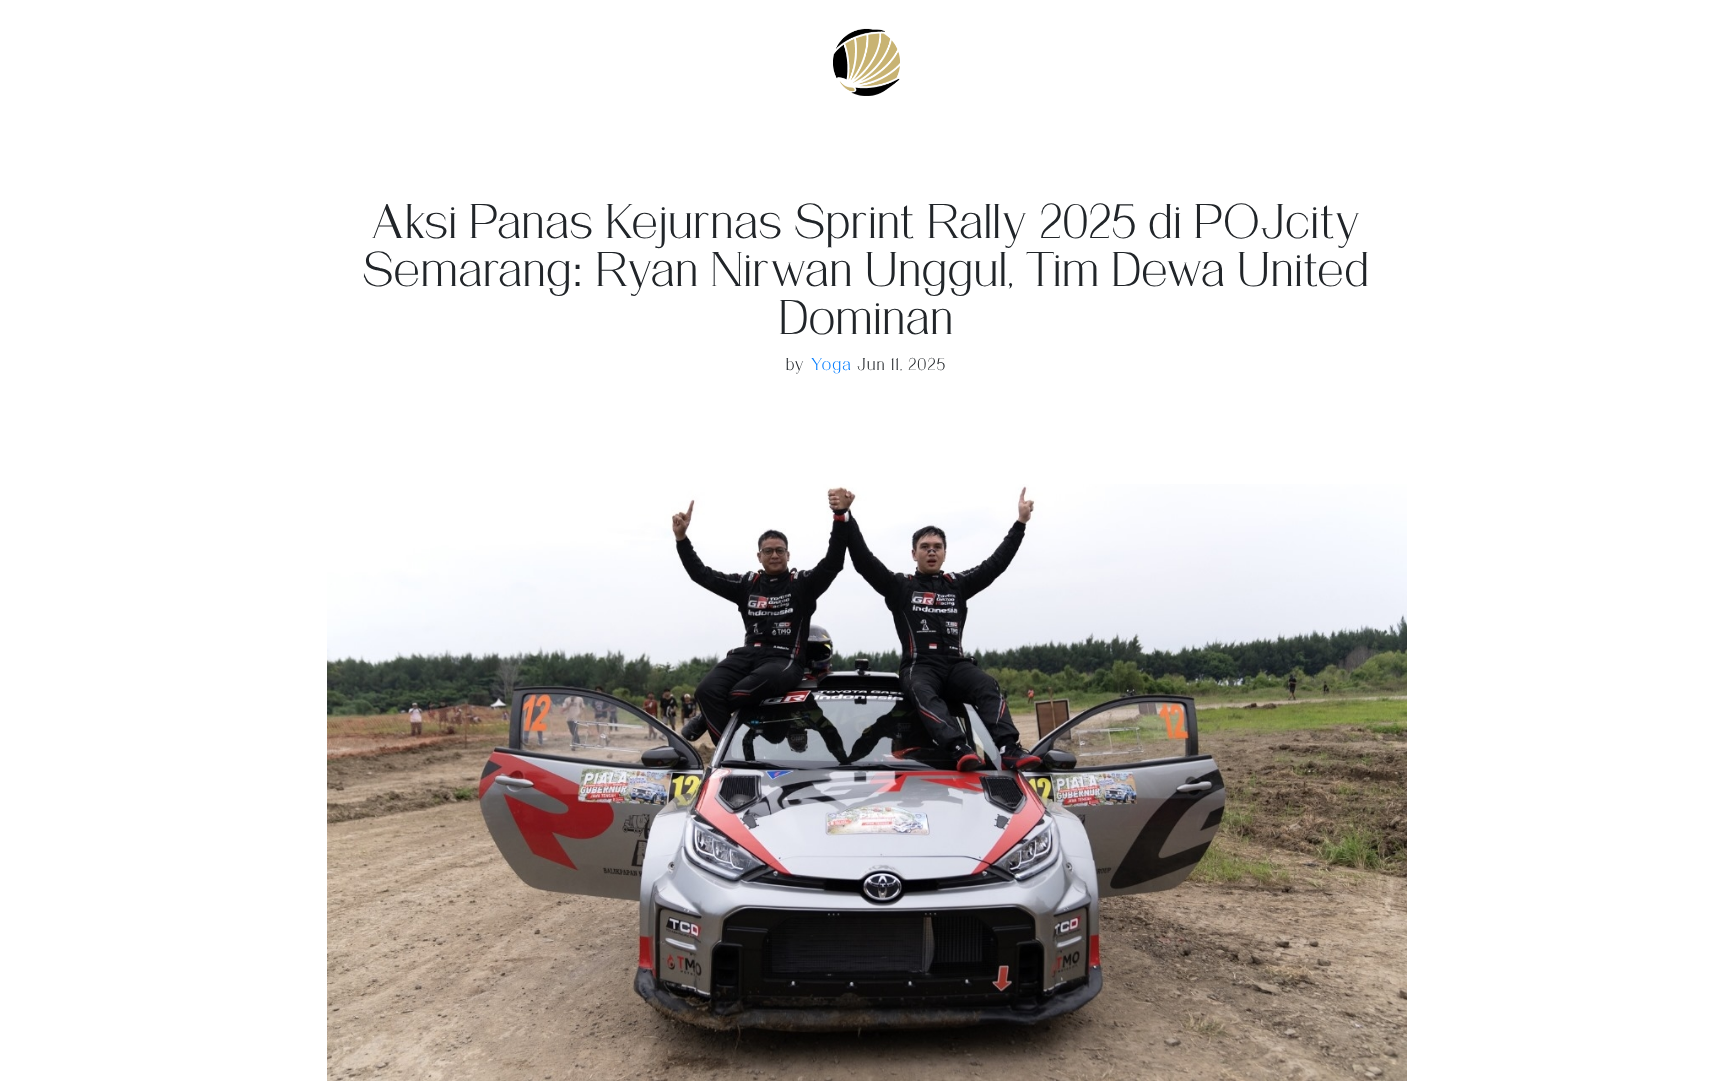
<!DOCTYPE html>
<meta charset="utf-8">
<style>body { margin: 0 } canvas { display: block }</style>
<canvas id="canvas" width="1733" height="1081"></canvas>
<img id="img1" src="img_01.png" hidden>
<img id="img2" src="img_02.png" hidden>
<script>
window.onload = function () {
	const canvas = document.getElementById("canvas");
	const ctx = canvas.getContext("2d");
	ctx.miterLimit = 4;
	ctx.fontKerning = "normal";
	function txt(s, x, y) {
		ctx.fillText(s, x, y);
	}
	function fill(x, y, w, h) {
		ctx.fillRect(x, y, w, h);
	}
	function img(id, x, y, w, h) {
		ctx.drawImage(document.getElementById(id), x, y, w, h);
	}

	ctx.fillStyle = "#FFFFFF";
	fill(0, 0, 1733, 1081);
	img("img1", 833, 28, 67, 68);
	img("img2", 327, 484, 1080, 597);
	ctx.letterSpacing = "1.6px";
	ctx.font = "40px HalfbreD";
	ctx.fillStyle = "#212529";
	txt("Aksi Panas Kejurnas Sprint Rally 2025 di POJcity", 371, 238);
	txt("Semarang", 363, 286);
	ctx.font = "40px Liberation Sans";
	txt(":", 572, 286);
	ctx.font = "40px HalfbreD";
	txt("Ryan Nirwan Unggul, Tim Dewa United", 596, 286);
	txt("Dominan", 779, 334);
	ctx.font = "14px HalfbreD";
	txt("by", 786, 370);
	ctx.fillStyle = "#007BFF";
	txt("Yoga", 811, 370);
	ctx.fillStyle = "#212529";
	txt("Jun 11, 2025", 857, 370);
};
</script>
